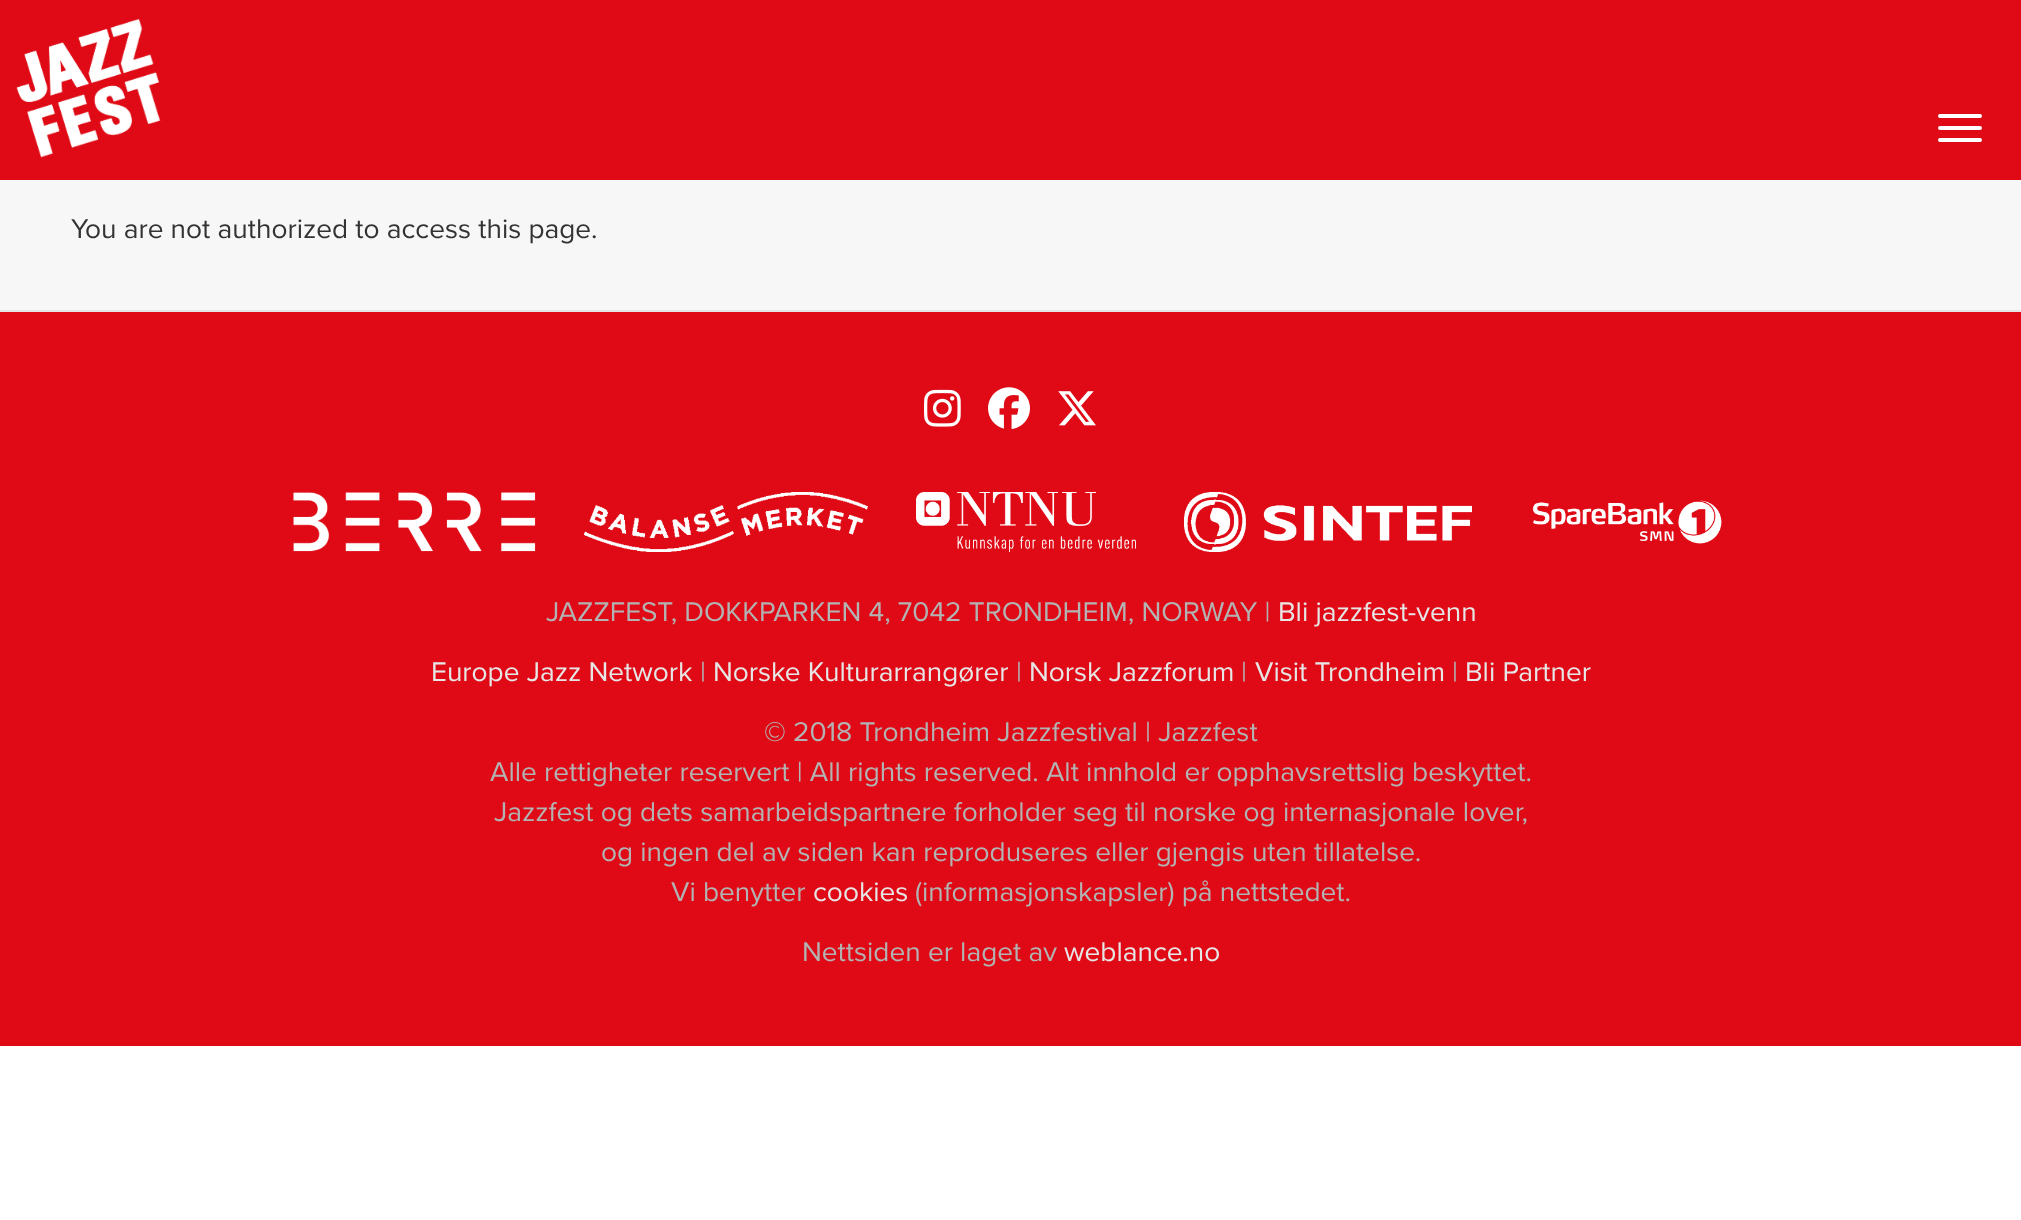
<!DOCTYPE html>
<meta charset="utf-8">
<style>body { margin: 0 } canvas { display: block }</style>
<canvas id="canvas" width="2021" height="1220"></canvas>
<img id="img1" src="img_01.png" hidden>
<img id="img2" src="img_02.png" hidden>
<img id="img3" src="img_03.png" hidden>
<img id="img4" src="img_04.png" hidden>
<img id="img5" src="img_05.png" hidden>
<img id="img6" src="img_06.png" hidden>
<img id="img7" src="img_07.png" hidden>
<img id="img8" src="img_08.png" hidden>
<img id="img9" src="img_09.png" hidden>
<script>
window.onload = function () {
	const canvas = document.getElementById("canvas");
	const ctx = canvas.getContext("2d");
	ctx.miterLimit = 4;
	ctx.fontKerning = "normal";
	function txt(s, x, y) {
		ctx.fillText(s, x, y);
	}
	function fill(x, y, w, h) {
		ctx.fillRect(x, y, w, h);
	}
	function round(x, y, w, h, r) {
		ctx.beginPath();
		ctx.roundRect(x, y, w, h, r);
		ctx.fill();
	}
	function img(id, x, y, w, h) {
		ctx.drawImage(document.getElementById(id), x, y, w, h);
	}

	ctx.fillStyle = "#FFFFFF";
	fill(0, 0, 2021, 1220);
	ctx.fillStyle = "#F7F7F7";
	fill(0, 180, 2021, 130);
	ctx.fillStyle = "#DF0A15";
	fill(0, 0, 2021, 180);
	img("img1", 16, 19, 145, 139);
	ctx.fillStyle = "#FFFFFF";
	round(1938, 114, 44, 4, 2);
	round(1938, 126, 44, 4, 2);
	round(1938, 138, 44, 4, 2);
	ctx.fillStyle = "#DF0A15";
	fill(0, 312, 2021, 734);
	ctx.fillStyle = "#E5E5E5";
	fill(0, 310, 2021, 2);
	img("img2", 924, 389, 37, 38);
	img("img3", 988, 387, 42, 42);
	img("img4", 1058, 391, 38, 35);
	img("img5", 293, 492, 243, 60);
	img("img6", 584, 492, 284, 60);
	img("img7", 916, 492, 220, 60);
	img("img8", 1184, 492, 288, 60);
	img("img9", 1532, 500, 190, 44);
	ctx.font = "28px Proxima Nova";
	ctx.fillStyle = "#333333";
	txt("You are not authorized to access this page.", 71, 238);
	ctx.fillStyle = "#B3B3B3";
	txt("JAZZFEST, DOKKPARKEN 4, 7042 TRONDHEIM, NORWAY |", 546, 621);
	ctx.fillStyle = "#E6E6E6";
	txt("Bli jazzfest-venn", 1278, 621);
	txt("Europe Jazz Network", 431, 681);
	ctx.fillStyle = "#B3B3B3";
	txt("|", 700, 681);
	ctx.fillStyle = "#E6E6E6";
	txt("Norske Kulturarrangører", 713, 681);
	ctx.fillStyle = "#B3B3B3";
	txt("|", 1016, 681);
	ctx.fillStyle = "#E6E6E6";
	txt("Norsk Jazzforum", 1029, 681);
	ctx.fillStyle = "#B3B3B3";
	txt("|", 1241, 681);
	ctx.fillStyle = "#E6E6E6";
	txt("Visit Trondheim", 1255, 681);
	ctx.fillStyle = "#B3B3B3";
	txt("|", 1452, 681);
	ctx.fillStyle = "#E6E6E6";
	txt("Bli Partner", 1465, 681);
	ctx.fillStyle = "#B3B3B3";
	txt("© 2018 Trondheim Jazzfestival | Jazzfest", 764, 741);
	txt("Alle rettigheter reservert | All rights reserved. Alt innhold er opphavsrettslig beskyttet.", 490, 781);
	txt("Jazzfest og dets samarbeidspartnere forholder seg til norske og internasjonale lover,", 494, 821);
	txt("og ingen del av siden kan reproduseres eller gjengis uten tillatelse.", 601, 861);
	txt("Vi benytter", 671, 901);
	ctx.fillStyle = "#E6E6E6";
	txt("cookies", 813, 901);
	ctx.fillStyle = "#B3B3B3";
	txt("(informasjonskapsler) på nettstedet.", 915, 901);
	txt("Nettsiden er laget av", 802, 961);
	ctx.fillStyle = "#E6E6E6";
	txt("weblance.no", 1064, 961);
};
</script>
